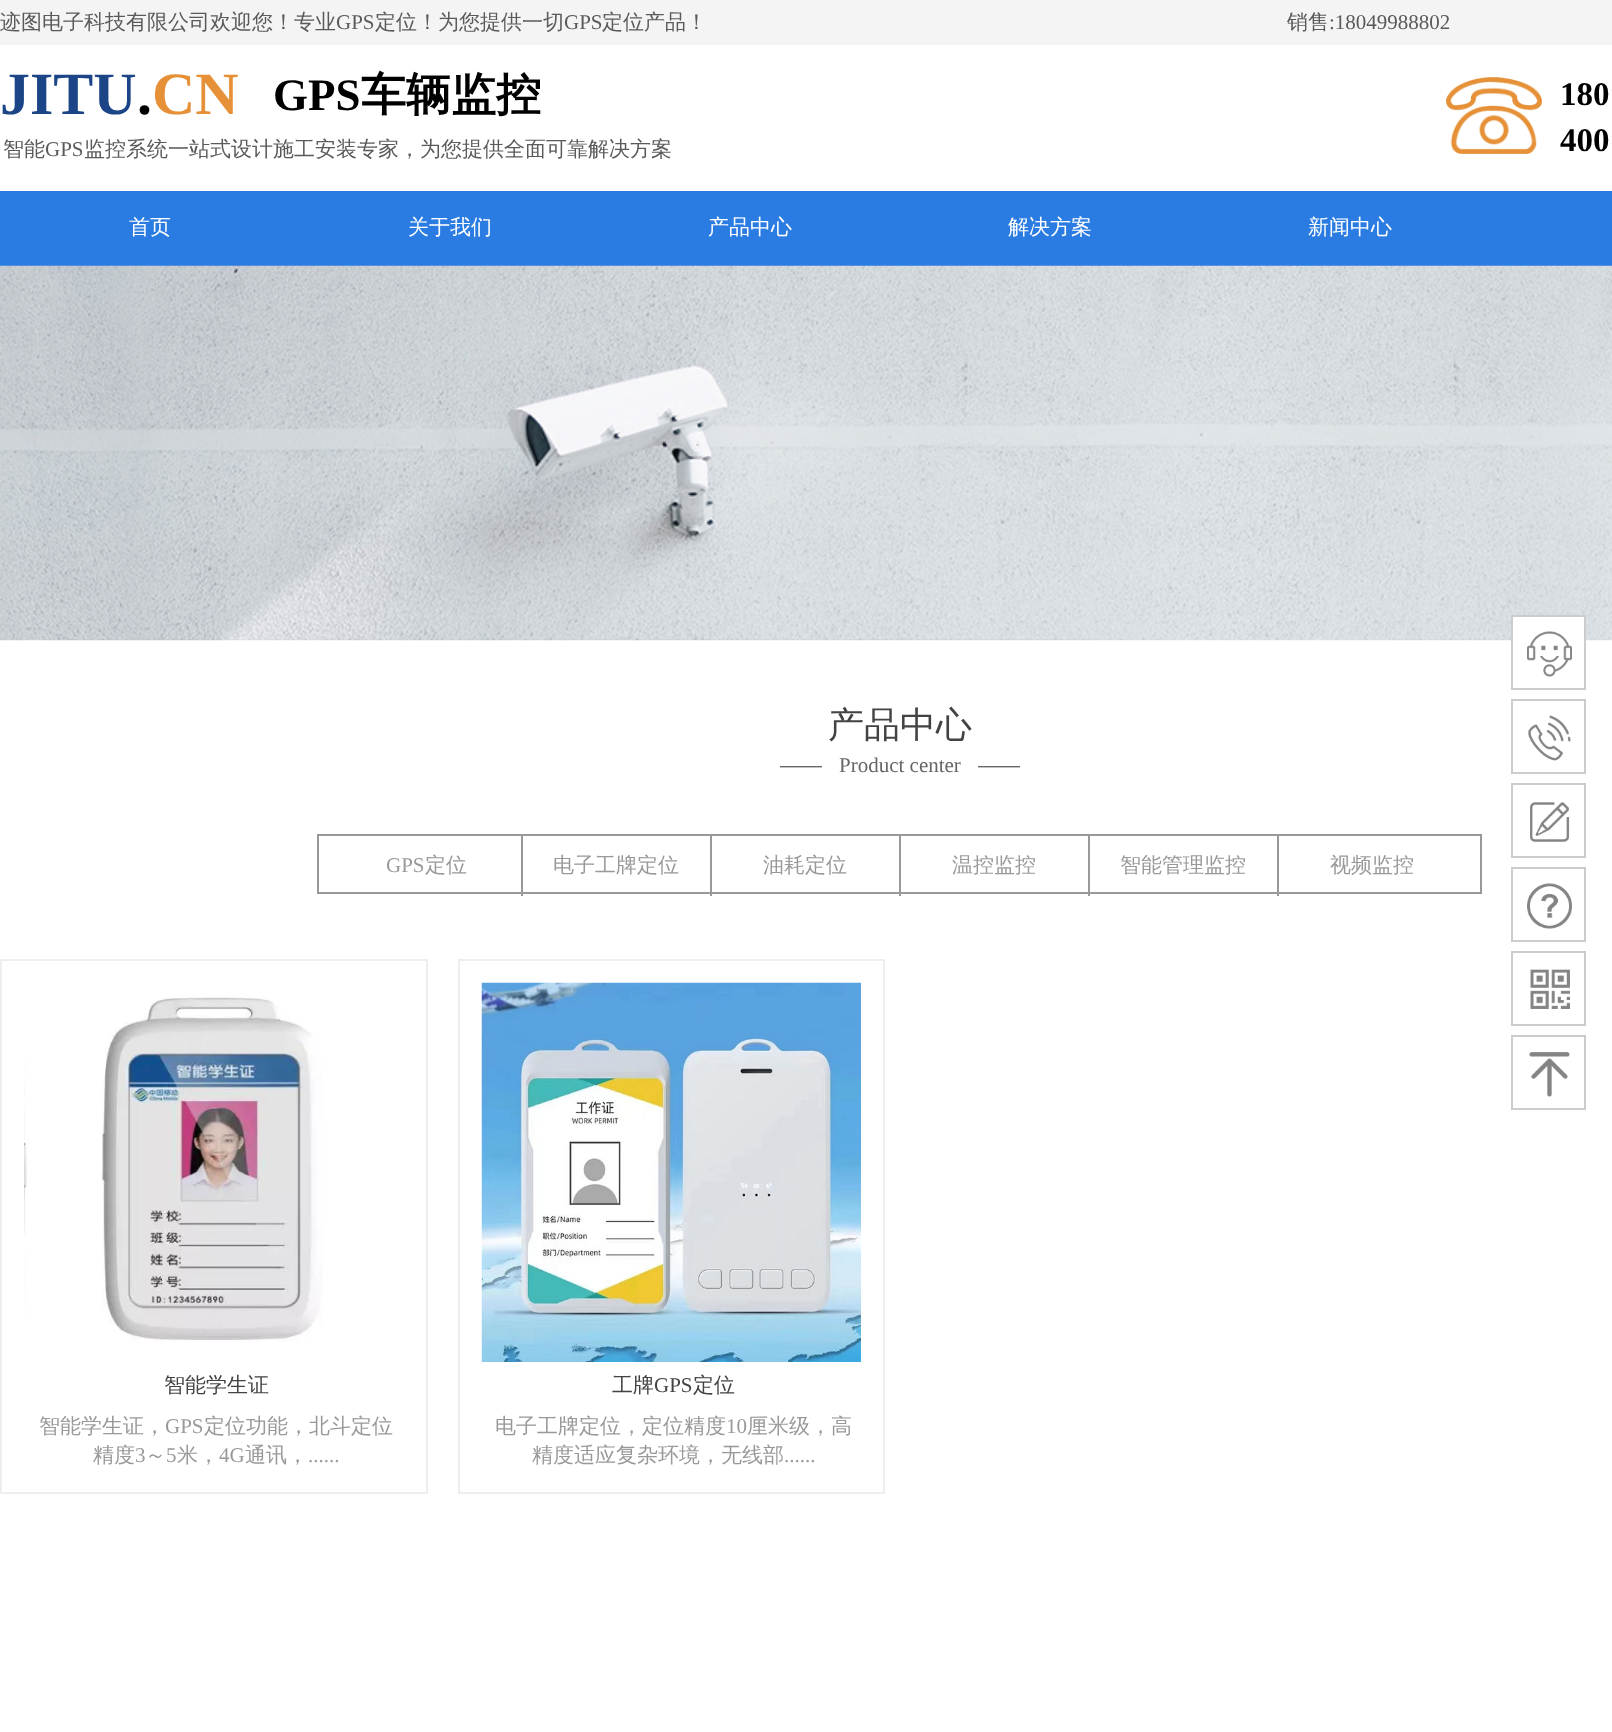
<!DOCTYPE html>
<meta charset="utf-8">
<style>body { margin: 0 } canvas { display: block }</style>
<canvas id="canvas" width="1612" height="1732"></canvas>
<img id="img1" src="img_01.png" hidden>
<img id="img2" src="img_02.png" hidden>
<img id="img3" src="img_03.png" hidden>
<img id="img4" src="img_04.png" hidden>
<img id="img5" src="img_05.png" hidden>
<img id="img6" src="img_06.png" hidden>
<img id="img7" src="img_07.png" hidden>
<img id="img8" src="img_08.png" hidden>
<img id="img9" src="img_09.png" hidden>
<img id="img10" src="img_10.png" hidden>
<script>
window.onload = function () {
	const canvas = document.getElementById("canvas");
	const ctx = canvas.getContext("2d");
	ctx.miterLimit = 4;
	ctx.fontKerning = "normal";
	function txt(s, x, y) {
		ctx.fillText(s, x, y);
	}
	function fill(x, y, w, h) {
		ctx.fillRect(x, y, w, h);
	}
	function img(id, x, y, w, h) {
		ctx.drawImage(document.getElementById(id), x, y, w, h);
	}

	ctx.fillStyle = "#FFFFFF";
	fill(0, 0, 1612, 1732);
	ctx.fillStyle = "#F4F4F4";
	fill(0, 0, 1612, 45);
	img("img1", 1446, 77, 96, 77);
	ctx.fillStyle = "#2B7CE2";
	fill(0, 191, 1612, 75);
	img("img2", 0, 265, 1612, 376);
	ctx.strokeStyle = "#999999";
	ctx.lineWidth = 2;
	ctx.strokeRect(318, 835, 1163, 58);
	ctx.fillStyle = "#999999";
	fill(521, 836, 2, 60);
	fill(710, 836, 2, 60);
	fill(899, 836, 2, 60);
	fill(1088, 836, 2, 60);
	fill(1277, 836, 2, 60);
	ctx.strokeStyle = "#EEEEEE";
	ctx.strokeRect(1, 960, 426, 533);
	img("img3", 24, 997, 299, 345);
	ctx.strokeRect(459, 960, 425, 533);
	img("img4", 481, 982, 380, 380);
	ctx.fillStyle = "#FFFFFF";
	fill(1513, 617, 71, 24);
	ctx.strokeStyle = "#CCCCCC";
	ctx.strokeRect(1512, 616, 73, 73);
	img("img5", 1527, 631, 45, 46);
	ctx.strokeRect(1512, 700, 73, 73);
	img("img6", 1528, 715, 43, 46);
	ctx.strokeRect(1512, 784, 73, 73);
	img("img7", 1530, 802, 40, 40);
	ctx.strokeRect(1512, 868, 73, 73);
	img("img8", 1527, 883, 45, 46);
	ctx.strokeRect(1512, 952, 73, 73);
	img("img9", 1530, 969, 40, 40);
	ctx.strokeRect(1512, 1036, 73, 73);
	img("img10", 1529, 1052, 41, 45);
	ctx.font = "500 21px WenQuanYi Zen Hei";
	ctx.fillStyle = "#5A5A5A";
	txt("迹图电子科技有限公司欢迎您！专业", 0, 29);
	ctx.font = "21px Liberation Serif";
	txt("GPS", 336, 29);
	ctx.font = "500 21px WenQuanYi Zen Hei";
	txt("定位！为您提供一切", 375, 29);
	ctx.font = "21px Liberation Serif";
	txt("GPS", 564, 29);
	ctx.font = "500 21px WenQuanYi Zen Hei";
	txt("定位产品！", 602, 29);
	txt("销售", 1287, 29);
	ctx.font = "21px Liberation Serif";
	txt(":18049988802", 1329, 29);
	ctx.font = "bold 60px Liberation Serif";
	ctx.fillStyle = "#1C4587";
	txt("JITU", 0, 114);
	ctx.fillStyle = "#000000";
	txt(".", 137, 114);
	ctx.fillStyle = "#E69138";
	txt("CN", 152, 114);
	ctx.font = "bold 45px Liberation Serif";
	ctx.fillStyle = "#000000";
	txt("GPS", 273, 110);
	ctx.font = "bold 45px WenQuanYi Zen Hei";
	txt("车辆监控", 361, 110);
	ctx.font = "bold 33px Liberation Serif";
	txt("180", 1560, 105);
	txt("400", 1560, 151);
	ctx.font = "500 21px WenQuanYi Zen Hei";
	ctx.fillStyle = "#5A5A5A";
	txt("智能", 3, 156);
	ctx.font = "21px Liberation Serif";
	txt("GPS", 45, 156);
	ctx.font = "500 21px WenQuanYi Zen Hei";
	txt("监控系统一站式设计施工安装专家，为您提供全面可靠解决方案", 84, 156);
	ctx.fillStyle = "#FFFFFF";
	txt("首页", 129, 234);
	txt("关于我们", 408, 234);
	txt("产品中心", 708, 234);
	txt("解决方案", 1008, 234);
	txt("新闻中心", 1308, 234);
	ctx.font = "500 36px WenQuanYi Zen Hei";
	ctx.fillStyle = "#434343";
	txt("产品中心", 828, 737);
	ctx.font = "21px Liberation Sans";
	ctx.fillStyle = "#666666";
	txt("——", 780, 772);
	ctx.font = "21px Liberation Serif";
	txt("Product center", 839, 772);
	ctx.font = "21px Liberation Sans";
	txt("——", 978, 772);
	ctx.font = "21px Liberation Serif";
	ctx.fillStyle = "#999999";
	txt("GPS", 386, 872);
	ctx.font = "500 21px WenQuanYi Zen Hei";
	txt("定位", 425, 872);
	txt("电子工牌定位", 553, 872);
	txt("油耗定位", 763, 872);
	txt("温控监控", 952, 872);
	txt("智能管理监控", 1120, 872);
	txt("视频监控", 1330, 872);
	ctx.fillStyle = "#434343";
	txt("智能学生证", 164, 1392);
	ctx.fillStyle = "#999999";
	txt("智能学生证，", 39, 1433);
	ctx.font = "21px Liberation Serif";
	txt("GPS", 165, 1433);
	ctx.font = "500 21px WenQuanYi Zen Hei";
	txt("定位功能，北斗定位", 204, 1433);
	txt("精度", 93, 1462);
	ctx.font = "21px Liberation Serif";
	txt("3", 135, 1462);
	ctx.font = "500 21px WenQuanYi Zen Hei";
	txt("～", 145, 1462);
	ctx.font = "21px Liberation Serif";
	txt("5", 166, 1462);
	ctx.font = "500 21px WenQuanYi Zen Hei";
	txt("米，", 177, 1462);
	ctx.font = "21px Liberation Serif";
	txt("4G", 219, 1462);
	ctx.font = "500 21px WenQuanYi Zen Hei";
	txt("通讯，", 245, 1462);
	ctx.font = "21px Liberation Serif";
	txt("......", 308, 1462);
	ctx.font = "500 21px WenQuanYi Zen Hei";
	ctx.fillStyle = "#434343";
	txt("工牌", 612, 1392);
	ctx.font = "21px Liberation Serif";
	txt("GPS", 654, 1392);
	ctx.font = "500 21px WenQuanYi Zen Hei";
	txt("定位", 693, 1392);
	ctx.fillStyle = "#999999";
	txt("电子工牌定位，定位精度", 495, 1433);
	ctx.font = "21px Liberation Serif";
	txt("10", 726, 1433);
	ctx.font = "500 21px WenQuanYi Zen Hei";
	txt("厘米级，高", 747, 1433);
	txt("精度适应复杂环境，无线部", 532, 1462);
	ctx.font = "21px Liberation Serif";
	txt("......", 784, 1462);
};
</script>
